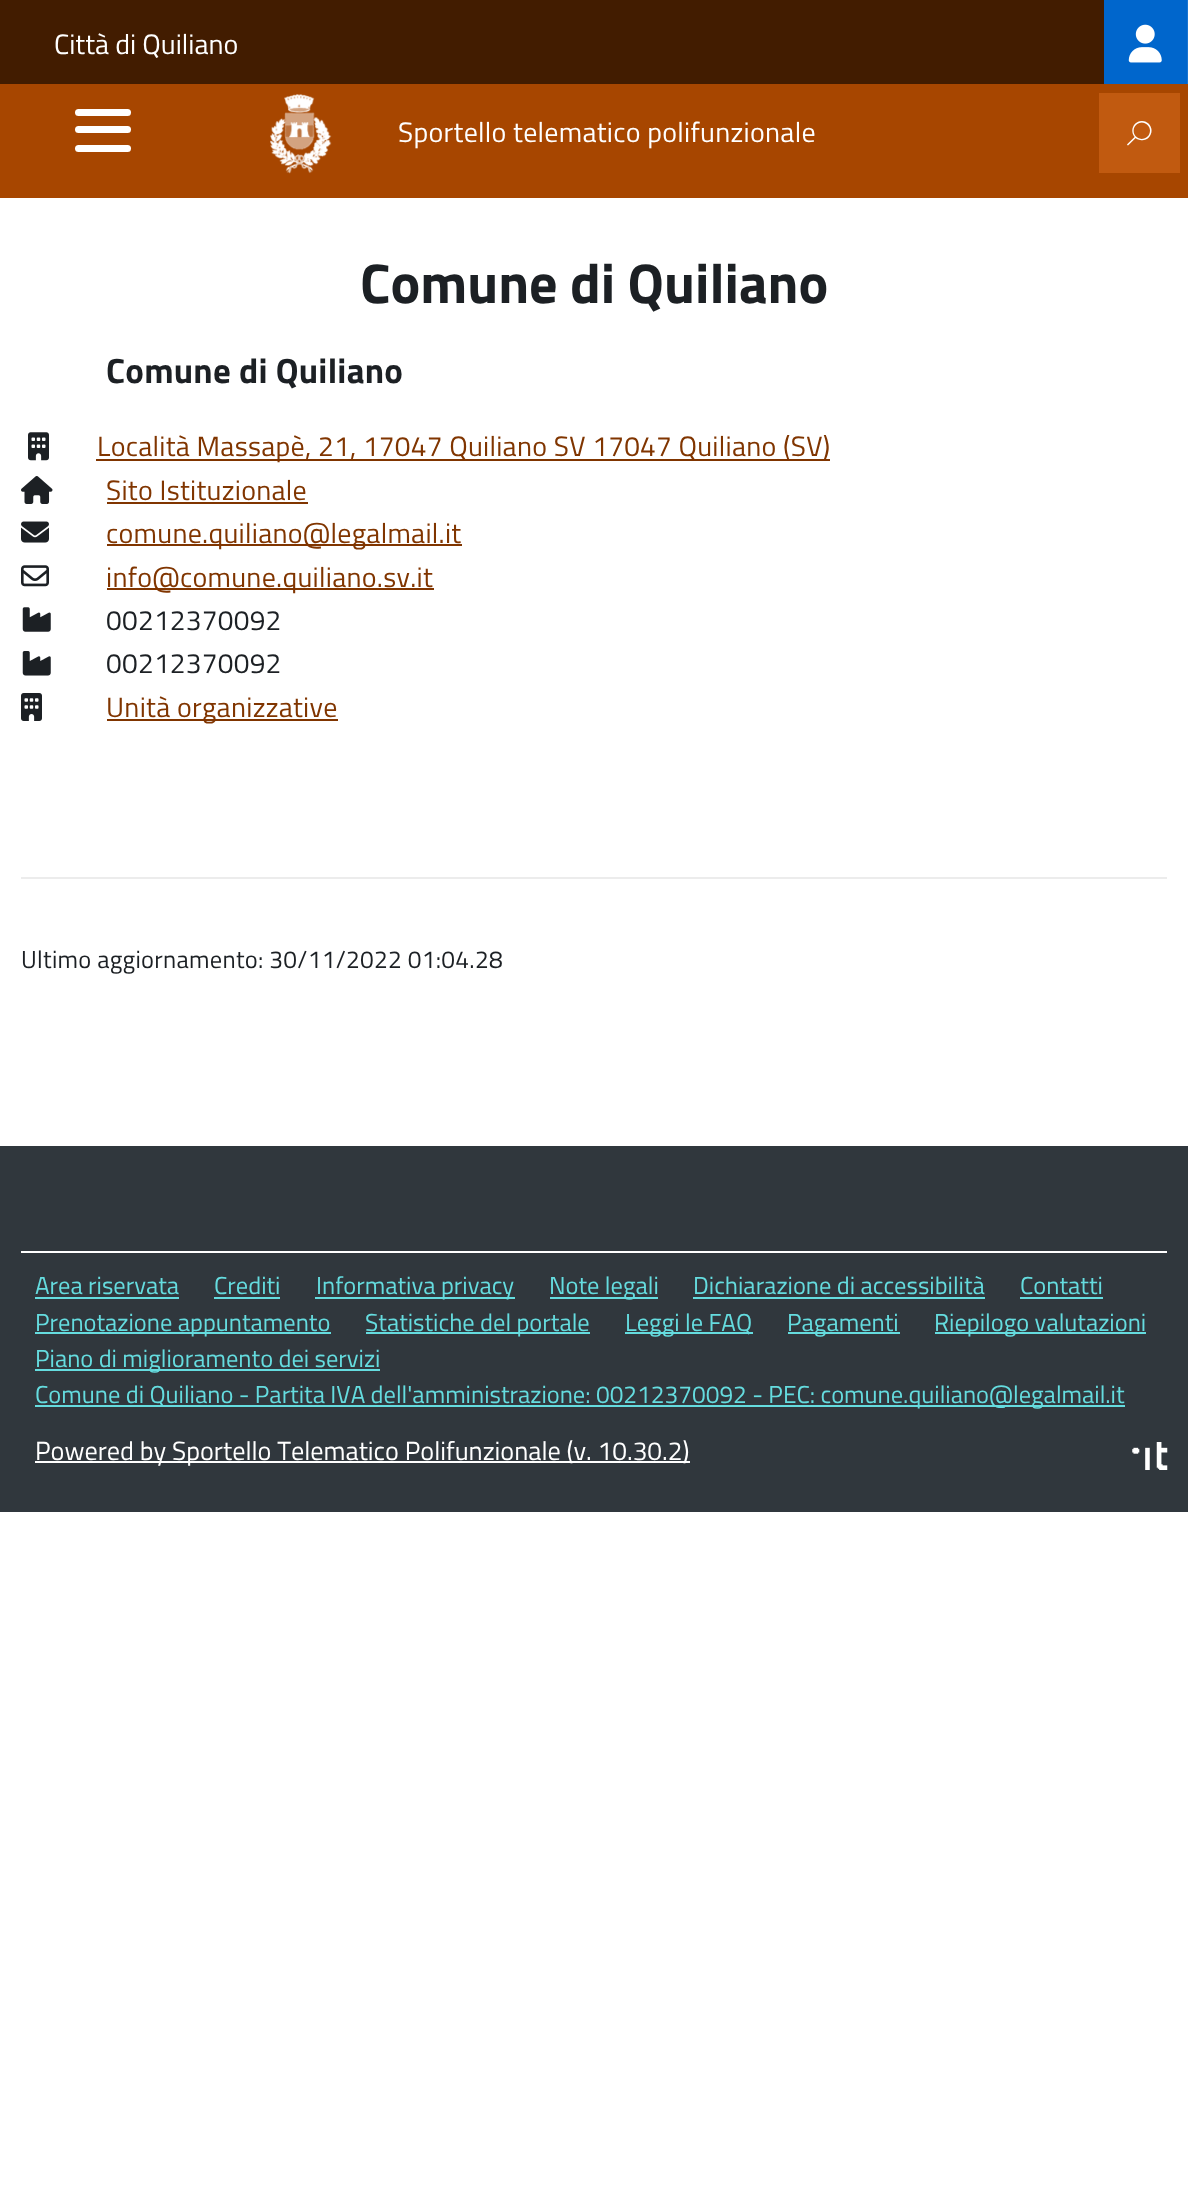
<!DOCTYPE html>
<meta charset="utf-8">
<style>body { margin: 0 } canvas { display: block }</style>
<canvas id="canvas" width="1188" height="2192"></canvas>
<img id="img1" src="img_01.png" hidden>
<img id="img2" src="img_02.png" hidden>
<img id="img3" src="img_03.png" hidden>
<img id="img4" src="img_04.png" hidden>
<img id="img5" src="img_05.png" hidden>
<img id="img6" src="img_06.png" hidden>
<img id="img7" src="img_07.png" hidden>
<img id="img8" src="img_08.png" hidden>
<img id="img9" src="img_09.png" hidden>
<img id="img10" src="img_10.png" hidden>
<script>
window.onload = function () {
	const canvas = document.getElementById("canvas");
	const ctx = canvas.getContext("2d");
	ctx.miterLimit = 4;
	ctx.fontKerning = "none";
	function txt(s, x, y) {
		ctx.fillText(s, x, y);
	}
	function fill(x, y, w, h) {
		ctx.fillRect(x, y, w, h);
	}
	function round(x, y, w, h, r) {
		ctx.beginPath();
		ctx.roundRect(x, y, w, h, r);
		ctx.fill();
	}
	function img(id, x, y, w, h) {
		ctx.drawImage(document.getElementById(id), x, y, w, h);
	}

	ctx.fillStyle = "#FFFFFF";
	fill(0, 0, 1188, 2192);
	ctx.fillStyle = "#421C00";
	fill(0, 0, 1104, 84);
	ctx.fillStyle = "#0066CC";
	fill(1104, 0, 83, 84);
	ctx.fillStyle = "#1A75D1";
	fill(1187, 0, 1, 84);
	img("img1", 1128, 24, 34, 39);
	ctx.fillStyle = "#A74600";
	fill(0, 84, 1188, 114);
	ctx.fillStyle = "#FFFFFF";
	round(75, 126, 56, 7, 3.5);
	round(75, 109, 56, 7, 3.5);
	round(75, 145, 56, 7, 3.5);
	img("img2", 270, 94, 62, 80);
	ctx.fillStyle = "#C15A10";
	fill(1099, 93, 81, 80);
	img("img3", 28, 432, 21, 29);
	ctx.fillStyle = "#803500";
	fill(96, 459, 734, 2);
	img("img4", 21, 476, 32, 28);
	fill(107, 502, 201, 2);
	img("img5", 21, 521, 28, 22);
	fill(107, 544, 355, 2);
	img("img6", 21, 565, 28, 22);
	fill(107, 588, 327, 2);
	img("img7", 22, 607, 29, 25);
	img("img8", 22, 651, 29, 25);
	img("img9", 21, 693, 21, 28);
	fill(107, 719, 231, 2);
	ctx.fillStyle = "#ECECEC";
	fill(21, 877, 1146, 2);
	ctx.fillStyle = "#30373D";
	fill(0, 1146, 1188, 366);
	ctx.fillStyle = "#FFFFFF";
	fill(21, 1251, 1146, 2);
	ctx.fillStyle = "#65DCDF";
	fill(35, 1297, 144, 2);
	fill(214, 1297, 66, 2);
	fill(315, 1297, 200, 2);
	fill(550, 1297, 108, 2);
	fill(693, 1297, 292, 2);
	fill(1020, 1297, 83, 2);
	fill(35, 1332, 296, 2);
	fill(366, 1332, 224, 2);
	fill(625, 1332, 128, 2);
	fill(788, 1332, 112, 2);
	fill(935, 1332, 211, 2);
	fill(35, 1369, 345, 2);
	fill(35, 1405, 1090, 2);
	ctx.fillStyle = "#FFFFFF";
	fill(35, 1461, 655, 2);
	img("img10", 1132, 1442, 36, 28);
	ctx.font = "28px Titillium Web";
	txt("Città di Quiliano", 54, 54);
	ctx.letterSpacing = "0.28px";
	txt("Sportello telematico polifunzionale", 398, 142);
	ctx.letterSpacing = "0px";
	ctx.font = "24.5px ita";
	txt("🔍", 1127, 144);
	ctx.font = "bold 56px Titillium Web";
	ctx.fillStyle = "#1C2024";
	txt("Comune di Quiliano", 360, 303);
	ctx.letterSpacing = "0.25px";
	ctx.font = "bold 35px Titillium Web";
	txt("Comune di Quiliano", 106, 383);
	ctx.letterSpacing = "0.28px";
	ctx.font = "28px Titillium Web";
	ctx.fillStyle = "#803500";
	txt("Località Massapè, 21, 17047 Quiliano SV 17047 Quiliano (SV)", 97, 456);
	txt("Sito Istituzionale", 106, 500);
	txt("comune.quiliano@legalmail.it", 106, 543);
	txt("info@comune.quiliano.sv.it", 106, 587);
	ctx.fillStyle = "#1C2024";
	txt("00212370092", 106, 630);
	txt("00212370092", 106, 673);
	ctx.fillStyle = "#803500";
	txt("Unità organizzative", 106, 717);
	ctx.font = "24.5px Titillium Web";
	ctx.fillStyle = "#1C2024";
	txt("Ultimo aggiornamento: 30/11/2022 01:04.28", 21, 968);
	ctx.letterSpacing = "0px";
	ctx.fillStyle = "#65DCDF";
	txt("Area riservata", 35, 1294);
	txt("Crediti", 214, 1294);
	txt("Informativa privacy", 316, 1294);
	txt("Note legali", 549, 1294);
	txt("Dichiarazione di accessibilità", 693, 1294);
	txt("Contatti", 1020, 1294);
	txt("Prenotazione appuntamento", 35, 1331);
	txt("Statistiche del portale", 365, 1331);
	txt("Leggi le FAQ", 625, 1331);
	txt("Pagamenti", 787, 1331);
	txt("Riepilogo valutazioni", 934, 1331);
	txt("Piano di miglioramento dei servizi", 35, 1367);
	txt("Comune di Quiliano - Partita IVA dell'amministrazione: 00212370092 - PEC: comune.quiliano@legalmail.it", 35, 1403);
	ctx.font = "26.25px Titillium Web";
	ctx.fillStyle = "#FFFFFF";
	txt("Powered by Sportello Telematico Polifunzionale (v. 10.30.2)", 35, 1460);
};
</script>
